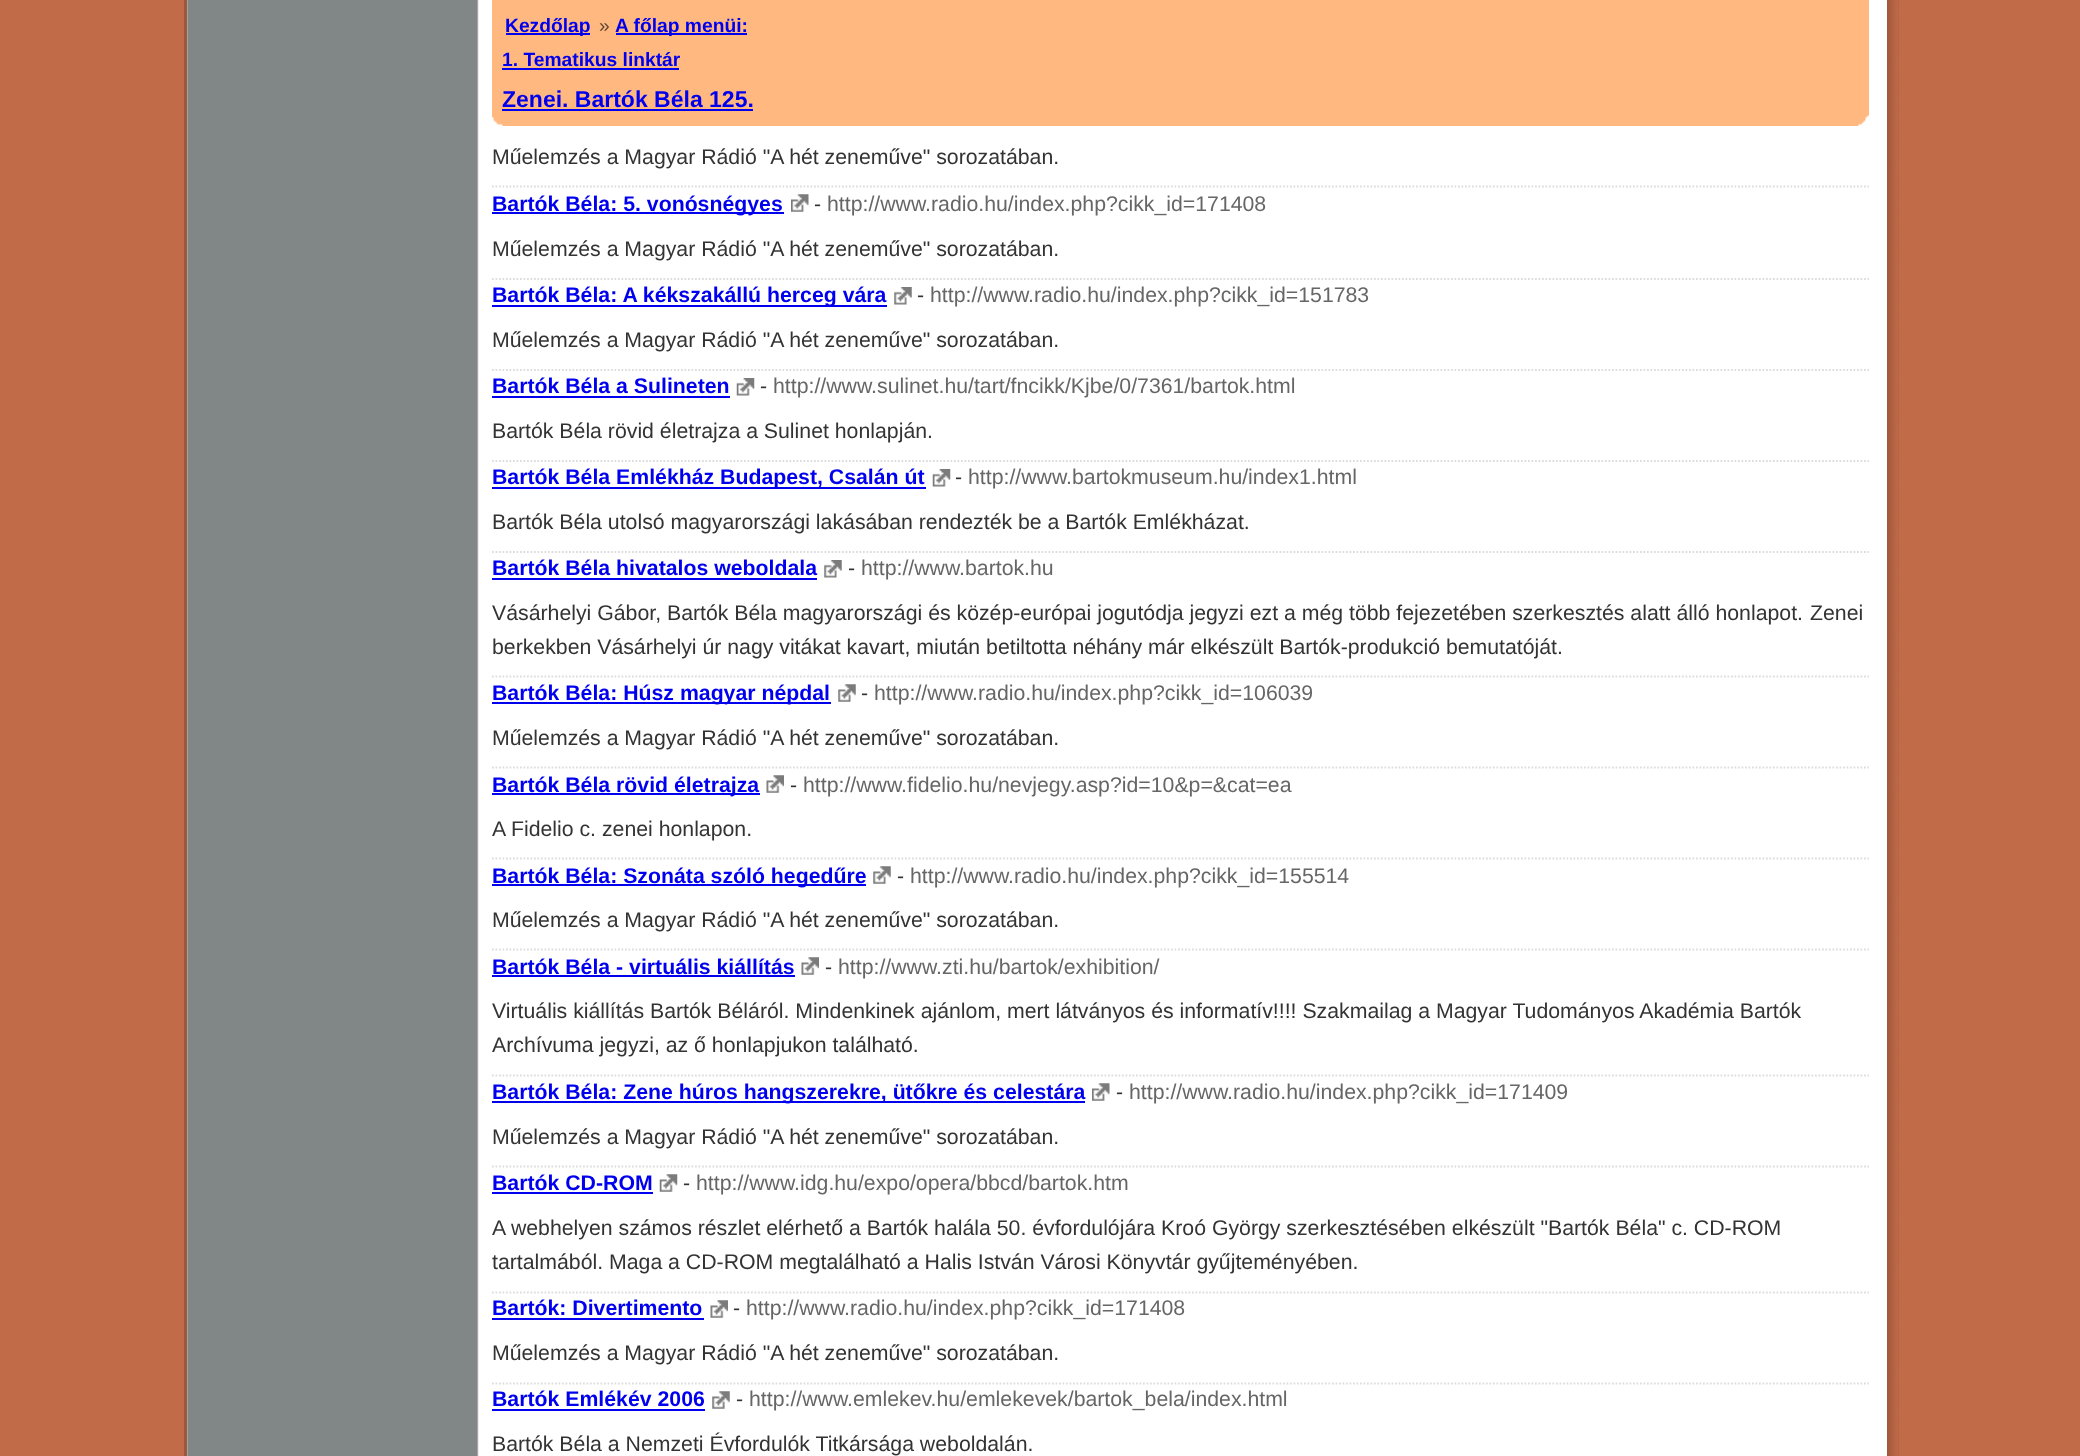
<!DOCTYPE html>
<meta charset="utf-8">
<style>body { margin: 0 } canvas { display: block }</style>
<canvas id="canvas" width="2080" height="1456"></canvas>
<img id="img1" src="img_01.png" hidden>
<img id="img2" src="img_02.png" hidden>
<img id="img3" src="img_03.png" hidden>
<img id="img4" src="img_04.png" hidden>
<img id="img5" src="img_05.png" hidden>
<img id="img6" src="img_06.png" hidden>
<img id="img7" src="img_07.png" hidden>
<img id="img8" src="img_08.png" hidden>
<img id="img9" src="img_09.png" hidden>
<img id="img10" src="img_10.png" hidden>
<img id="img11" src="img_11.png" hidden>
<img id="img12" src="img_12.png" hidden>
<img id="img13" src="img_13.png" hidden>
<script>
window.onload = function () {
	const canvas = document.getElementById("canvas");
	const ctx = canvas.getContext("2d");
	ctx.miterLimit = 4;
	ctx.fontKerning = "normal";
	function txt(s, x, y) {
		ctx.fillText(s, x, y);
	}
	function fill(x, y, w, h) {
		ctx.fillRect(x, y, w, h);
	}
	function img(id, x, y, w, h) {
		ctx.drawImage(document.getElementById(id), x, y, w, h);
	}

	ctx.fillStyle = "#C16B48";
	fill(0, 0, 2080, 1456);
	ctx.fillStyle = "#9F573B";
	fill(184, 0, 1715, 1456);
	img("img1", 1888, 0, 11, 1456);
	ctx.fillStyle = "#FFFFFF";
	fill(187, 0, 1700, 1456);
	img("img2", 187, 0, 292, 1456);
	ctx.fillStyle = "#FFB87F";
	fill(492, 0, 1377, 126);
	img("img3", 492, 116, 11, 10);
	img("img4", 1858, 115, 11, 11);
	ctx.fillStyle = "#0000EE";
	fill(506, 33, 84, 2);
	fill(616, 33, 131, 2);
	fill(502, 68, 177, 2);
	fill(502, 109, 251, 2);
	ctx.beginPath();
	ctx.moveTo(492, 186.5);
	ctx.lineTo(1869, 186.5);
	ctx.strokeStyle = "#DDDDDD";
	ctx.lineWidth = 1.8;
	ctx.setLineDash([1.75, 1.75]);
	ctx.stroke();
	fill(492, 212, 292, 2);
	img("img5", 791, 194, 18, 18);
	ctx.beginPath();
	ctx.moveTo(492, 279);
	ctx.lineTo(1869, 279);
	ctx.stroke();
	fill(492, 305, 395, 2);
	img("img6", 894, 287, 18, 18);
	ctx.beginPath();
	ctx.moveTo(492, 370);
	ctx.lineTo(1869, 370);
	ctx.stroke();
	fill(492, 396, 238, 2);
	img("img7", 736, 378, 19, 18);
	ctx.beginPath();
	ctx.moveTo(492, 461);
	ctx.lineTo(1869, 461);
	ctx.stroke();
	fill(492, 487, 434, 2);
	img("img7", 932, 469, 19, 18);
	ctx.beginPath();
	ctx.moveTo(492, 552);
	ctx.lineTo(1869, 552);
	ctx.stroke();
	fill(492, 578, 325, 2);
	img("img6", 824, 560, 18, 18);
	ctx.beginPath();
	ctx.moveTo(492, 676.5);
	ctx.lineTo(1869, 676.5);
	ctx.stroke();
	fill(492, 702, 339, 2);
	img("img8", 838, 684, 18, 18);
	ctx.beginPath();
	ctx.moveTo(492, 767.5);
	ctx.lineTo(1869, 767.5);
	ctx.stroke();
	fill(492, 793, 268, 2);
	img("img9", 766, 775, 18, 18);
	ctx.beginPath();
	ctx.moveTo(492, 858.5);
	ctx.lineTo(1869, 858.5);
	ctx.stroke();
	fill(492, 884, 374, 2);
	img("img8", 873, 866, 18, 18);
	ctx.beginPath();
	ctx.moveTo(492, 949.5);
	ctx.lineTo(1869, 949.5);
	ctx.stroke();
	fill(492, 975, 303, 2);
	img("img10", 801, 957, 18, 18);
	ctx.beginPath();
	ctx.moveTo(492, 1075.5);
	ctx.lineTo(1869, 1075.5);
	ctx.stroke();
	fill(492, 1101, 593, 2);
	img("img5", 1092, 1083, 18, 18);
	ctx.beginPath();
	ctx.moveTo(492, 1166.5);
	ctx.lineTo(1869, 1166.5);
	ctx.stroke();
	fill(492, 1192, 161, 2);
	img("img11", 659, 1174, 19, 18);
	ctx.beginPath();
	ctx.moveTo(492, 1292.5);
	ctx.lineTo(1869, 1292.5);
	ctx.stroke();
	fill(492, 1318, 212, 2);
	img("img12", 710, 1300, 18, 18);
	ctx.beginPath();
	ctx.moveTo(492, 1383.5);
	ctx.lineTo(1869, 1383.5);
	ctx.stroke();
	fill(492, 1409, 213, 2);
	img("img13", 712, 1391, 18, 18);
	ctx.font = "bold 19.25px Liberation Sans";
	txt("Kezdőlap", 505, 32);
	ctx.font = "19.25px Liberation Sans";
	ctx.fillStyle = "#5F452F";
	txt("»", 599, 32);
	ctx.font = "bold 19.25px Liberation Sans";
	ctx.fillStyle = "#0000EE";
	txt("A főlap menüi:", 615, 32);
	txt("1. Tematikus linktár", 502, 66);
	ctx.font = "bold 23px Liberation Sans";
	txt("Zenei. Bartók Béla 125.", 502, 107);
	ctx.font = "21.28px Liberation Sans";
	ctx.fillStyle = "#333333";
	txt("Műelemzés a Magyar Rádió \"A hét zeneműve\" sorozatában.", 492, 164);
	ctx.font = "bold 21.28px Liberation Sans";
	ctx.fillStyle = "#0000EE";
	txt("Bartók Béla: 5. vonósnégyes", 492, 211);
	ctx.font = "21.28px Liberation Sans";
	ctx.fillStyle = "#333333";
	txt("-", 814, 211);
	ctx.fillStyle = "#666666";
	txt("http://www.radio.hu/index.php?cikk_id=171408", 827, 211);
	ctx.fillStyle = "#333333";
	txt("Műelemzés a Magyar Rádió \"A hét zeneműve\" sorozatában.", 492, 256);
	ctx.font = "bold 21.28px Liberation Sans";
	ctx.fillStyle = "#0000EE";
	txt("Bartók Béla: A kékszakállú herceg vára", 492, 302);
	ctx.font = "21.28px Liberation Sans";
	ctx.fillStyle = "#333333";
	txt("-", 917, 302);
	ctx.fillStyle = "#666666";
	txt("http://www.radio.hu/index.php?cikk_id=151783", 930, 302);
	ctx.fillStyle = "#333333";
	txt("Műelemzés a Magyar Rádió \"A hét zeneműve\" sorozatában.", 492, 347);
	ctx.font = "bold 21.28px Liberation Sans";
	ctx.fillStyle = "#0000EE";
	txt("Bartók Béla a Sulineten", 492, 393);
	ctx.font = "21.28px Liberation Sans";
	ctx.fillStyle = "#333333";
	txt("-", 760, 393);
	ctx.fillStyle = "#666666";
	txt("http://www.sulinet.hu/tart/fncikk/Kjbe/0/7361/bartok.html", 773, 393);
	ctx.fillStyle = "#333333";
	txt("Bartók Béla rövid életrajza a Sulinet honlapján.", 492, 438);
	ctx.font = "bold 21.28px Liberation Sans";
	ctx.fillStyle = "#0000EE";
	txt("Bartók Béla Emlékház Budapest, Csalán út", 492, 484);
	ctx.font = "21.28px Liberation Sans";
	ctx.fillStyle = "#333333";
	txt("-", 955, 484);
	ctx.fillStyle = "#666666";
	txt("http://www.bartokmuseum.hu/index1.html", 968, 484);
	ctx.fillStyle = "#333333";
	txt("Bartók Béla utolsó magyarországi lakásában rendezték be a Bartók Emlékházat.", 492, 529);
	ctx.font = "bold 21.28px Liberation Sans";
	ctx.fillStyle = "#0000EE";
	txt("Bartók Béla hivatalos weboldala", 492, 575);
	ctx.font = "21.28px Liberation Sans";
	ctx.fillStyle = "#333333";
	txt("-", 848, 575);
	ctx.fillStyle = "#666666";
	txt("http://www.bartok.hu", 861, 575);
	ctx.fillStyle = "#333333";
	txt("Vásárhelyi Gábor, Bartók Béla magyarországi és közép-európai jogutódja jegyzi ezt a még több fejezetében szerkesztés alatt álló honlapot.", 492, 620);
	txt("Zenei", 1810, 620);
	txt("berkekben Vásárhelyi úr nagy vitákat kavart, miután betiltotta néhány már elkészült Bartók-produkció bemutatóját.", 492, 654);
	ctx.font = "bold 21.28px Liberation Sans";
	ctx.fillStyle = "#0000EE";
	txt("Bartók Béla: Húsz magyar népdal", 492, 700);
	ctx.font = "21.28px Liberation Sans";
	ctx.fillStyle = "#333333";
	txt("-", 861, 700);
	ctx.fillStyle = "#666666";
	txt("http://www.radio.hu/index.php?cikk_id=106039", 874, 700);
	ctx.fillStyle = "#333333";
	txt("Műelemzés a Magyar Rádió \"A hét zeneműve\" sorozatában.", 492, 745);
	ctx.font = "bold 21.28px Liberation Sans";
	ctx.fillStyle = "#0000EE";
	txt("Bartók Béla rövid életrajza", 492, 792);
	ctx.font = "21.28px Liberation Sans";
	ctx.fillStyle = "#333333";
	txt("-", 790, 792);
	ctx.fillStyle = "#666666";
	txt("http://www.fidelio.hu/nevjegy.asp?id=10&p=&cat=ea", 803, 792);
	ctx.fillStyle = "#333333";
	txt("A Fidelio c. zenei honlapon.", 492, 836);
	ctx.font = "bold 21.28px Liberation Sans";
	ctx.fillStyle = "#0000EE";
	txt("Bartók Béla: Szonáta szóló hegedűre", 492, 883);
	ctx.font = "21.28px Liberation Sans";
	ctx.fillStyle = "#333333";
	txt("-", 897, 883);
	ctx.fillStyle = "#666666";
	txt("http://www.radio.hu/index.php?cikk_id=155514", 910, 883);
	ctx.fillStyle = "#333333";
	txt("Műelemzés a Magyar Rádió \"A hét zeneműve\" sorozatában.", 492, 927);
	ctx.font = "bold 21.28px Liberation Sans";
	ctx.fillStyle = "#0000EE";
	txt("Bartók Béla - virtuális kiállítás", 492, 974);
	ctx.font = "21.28px Liberation Sans";
	ctx.fillStyle = "#333333";
	txt("-", 825, 974);
	ctx.fillStyle = "#666666";
	txt("http://www.zti.hu/bartok/exhibition/", 838, 974);
	ctx.fillStyle = "#333333";
	txt("Virtuális kiállítás Bartók Béláról. Mindenkinek ajánlom, mert látványos és informatív!!!! Szakmailag a Magyar Tudományos Akadémia Bartók", 492, 1018);
	txt("Archívuma jegyzi, az ő honlapjukon található.", 492, 1052);
	ctx.font = "bold 21.28px Liberation Sans";
	ctx.fillStyle = "#0000EE";
	txt("Bartók Béla: Zene húros hangszerekre, ütőkre és celestára", 492, 1099);
	ctx.font = "21.28px Liberation Sans";
	ctx.fillStyle = "#333333";
	txt("-", 1116, 1099);
	ctx.fillStyle = "#666666";
	txt("http://www.radio.hu/index.php?cikk_id=171409", 1129, 1099);
	ctx.fillStyle = "#333333";
	txt("Műelemzés a Magyar Rádió \"A hét zeneműve\" sorozatában.", 492, 1144);
	ctx.font = "bold 21.28px Liberation Sans";
	ctx.fillStyle = "#0000EE";
	txt("Bartók CD-ROM", 492, 1190);
	ctx.font = "21.28px Liberation Sans";
	ctx.fillStyle = "#333333";
	txt("-", 683, 1190);
	ctx.fillStyle = "#666666";
	txt("http://www.idg.hu/expo/opera/bbcd/bartok.htm", 696, 1190);
	ctx.fillStyle = "#333333";
	txt("A webhelyen számos részlet elérhető a Bartók halála 50. évfordulójára Kroó György szerkesztésében elkészült \"Bartók Béla\" c. CD-ROM", 492, 1235);
	txt("tartalmából. Maga a CD-ROM megtalálható a Halis István Városi Könyvtár gyűjteményében.", 492, 1269);
	ctx.font = "bold 21.28px Liberation Sans";
	ctx.fillStyle = "#0000EE";
	txt("Bartók: Divertimento", 492, 1315);
	ctx.font = "21.28px Liberation Sans";
	ctx.fillStyle = "#333333";
	txt("-", 733, 1315);
	ctx.fillStyle = "#666666";
	txt("http://www.radio.hu/index.php?cikk_id=171408", 746, 1315);
	ctx.fillStyle = "#333333";
	txt("Műelemzés a Magyar Rádió \"A hét zeneműve\" sorozatában.", 492, 1360);
	ctx.font = "bold 21.28px Liberation Sans";
	ctx.fillStyle = "#0000EE";
	txt("Bartók Emlékév 2006", 492, 1406);
	ctx.font = "21.28px Liberation Sans";
	ctx.fillStyle = "#333333";
	txt("-", 736, 1406);
	ctx.fillStyle = "#666666";
	txt("http://www.emlekev.hu/emlekevek/bartok_bela/index.html", 749, 1406);
	ctx.fillStyle = "#333333";
	txt("Bartók Béla a Nemzeti Évfordulók Titkársága weboldalán.", 492, 1451);
};
</script>
